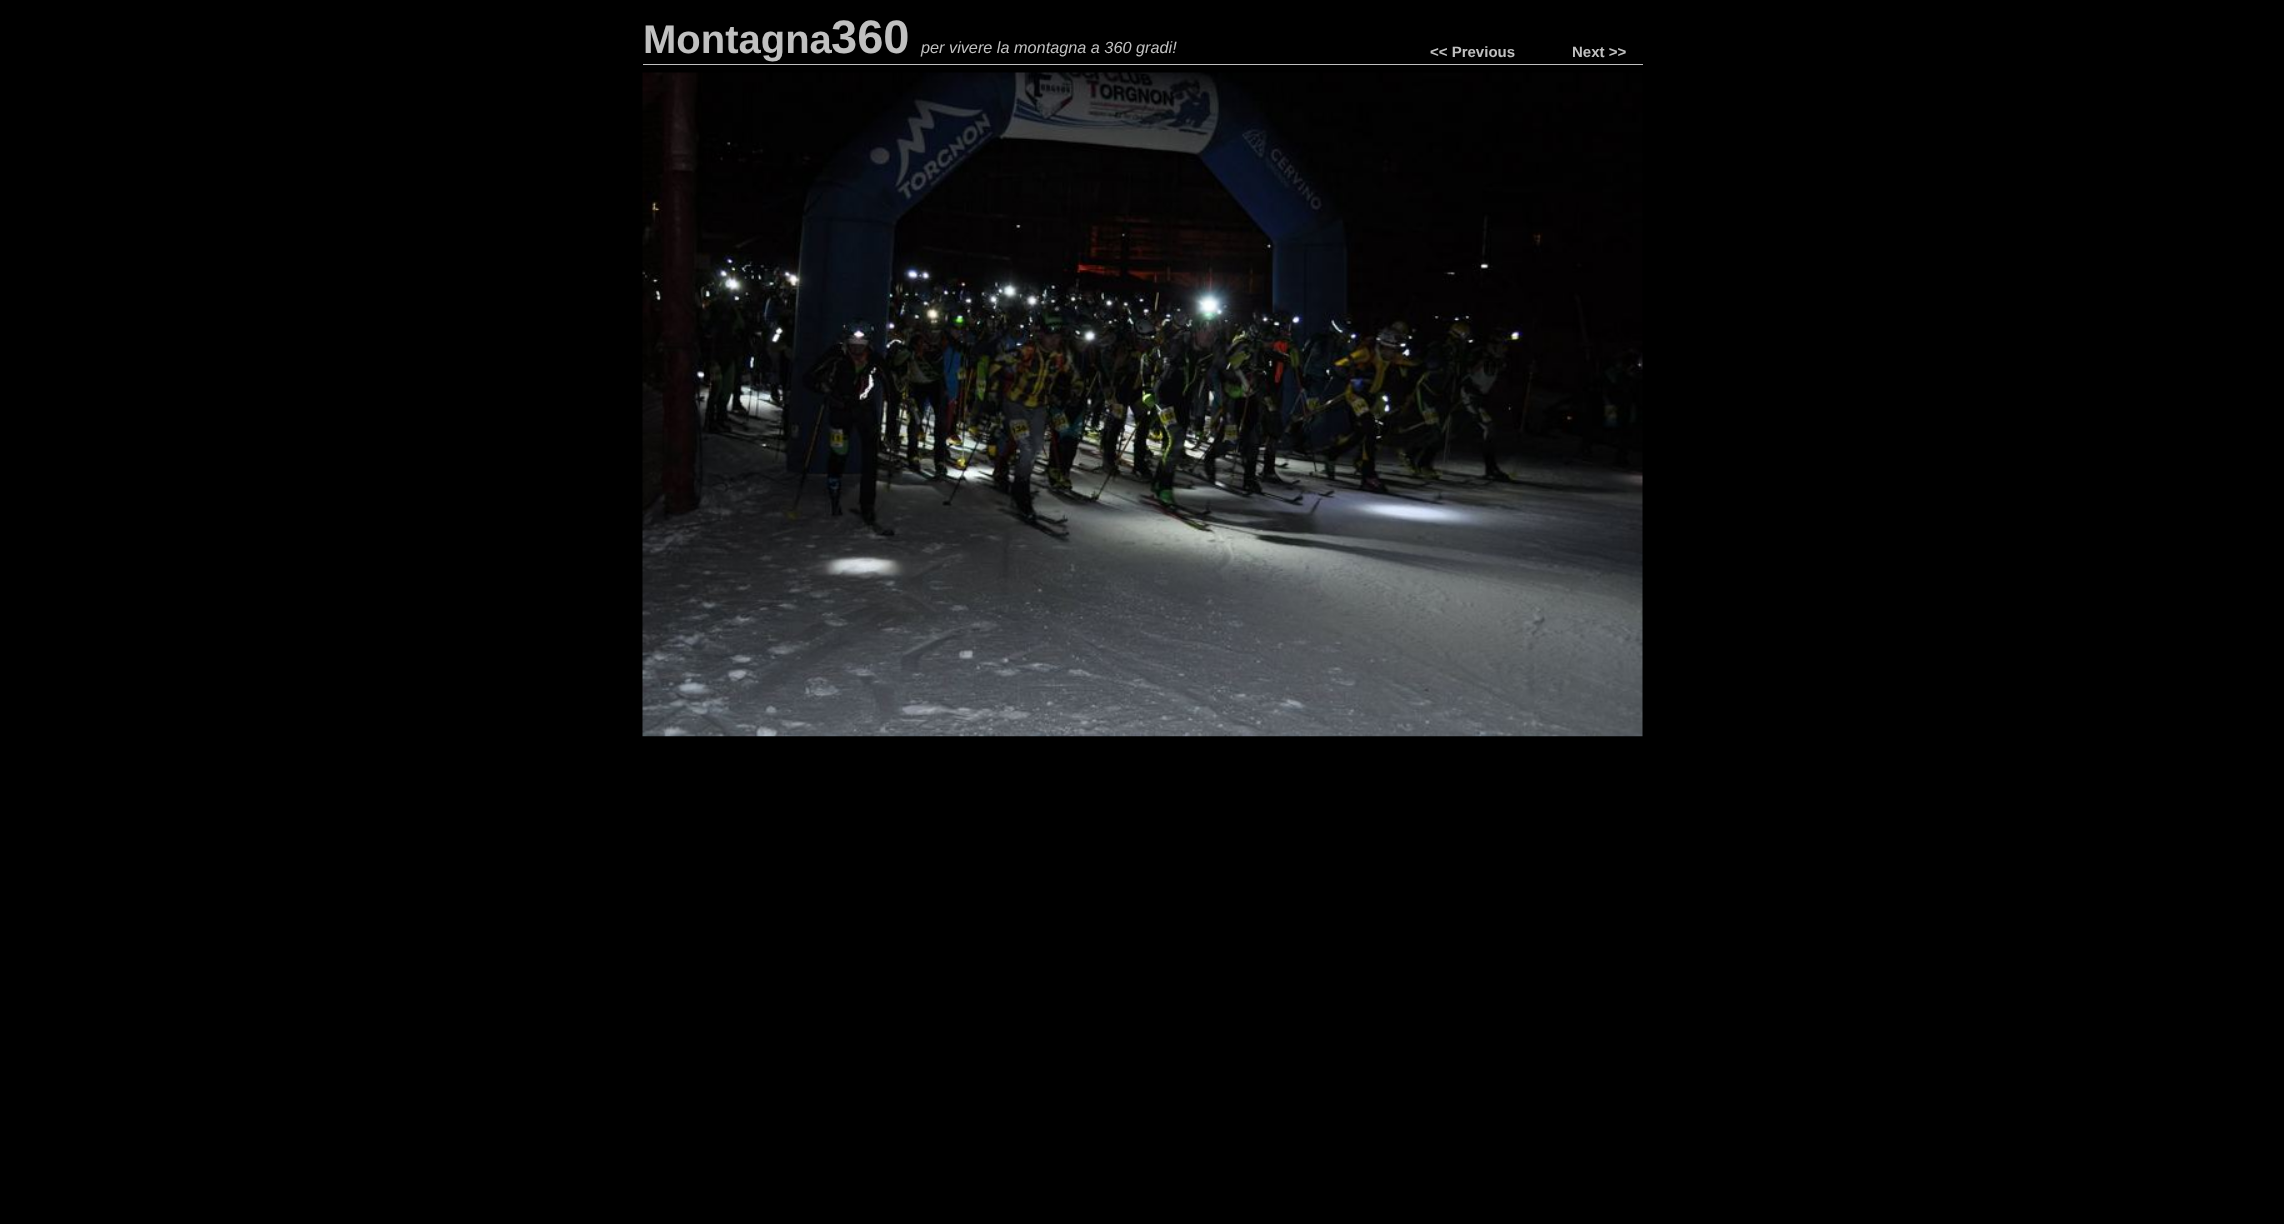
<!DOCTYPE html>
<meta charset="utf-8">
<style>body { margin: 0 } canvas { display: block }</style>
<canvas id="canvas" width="2284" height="1224"></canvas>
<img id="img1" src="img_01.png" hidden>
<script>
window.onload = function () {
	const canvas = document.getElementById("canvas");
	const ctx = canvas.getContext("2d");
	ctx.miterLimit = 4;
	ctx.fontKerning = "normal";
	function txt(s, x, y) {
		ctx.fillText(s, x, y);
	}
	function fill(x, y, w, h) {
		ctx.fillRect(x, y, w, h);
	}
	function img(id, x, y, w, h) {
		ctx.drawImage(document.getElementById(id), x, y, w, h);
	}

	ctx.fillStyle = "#000000";
	fill(0, 0, 2284, 1224);
	ctx.fillStyle = "#C0C0C0";
	fill(643, 64, 1000, 1);
	img("img1", 642, 72, 1001, 665);
	ctx.font = "bold 40px Liberation Sans";
	txt("Montagna", 643, 53);
	ctx.font = "bold 47px Liberation Sans";
	txt("360", 831, 53);
	ctx.font = "italic 16.25px Liberation Sans";
	txt("per vivere la montagna a 360 gradi!", 921, 53);
	ctx.font = "bold 15px Liberation Sans";
	txt("<< Previous", 1430, 57);
	txt("Next >>", 1572, 57);
};
</script>
